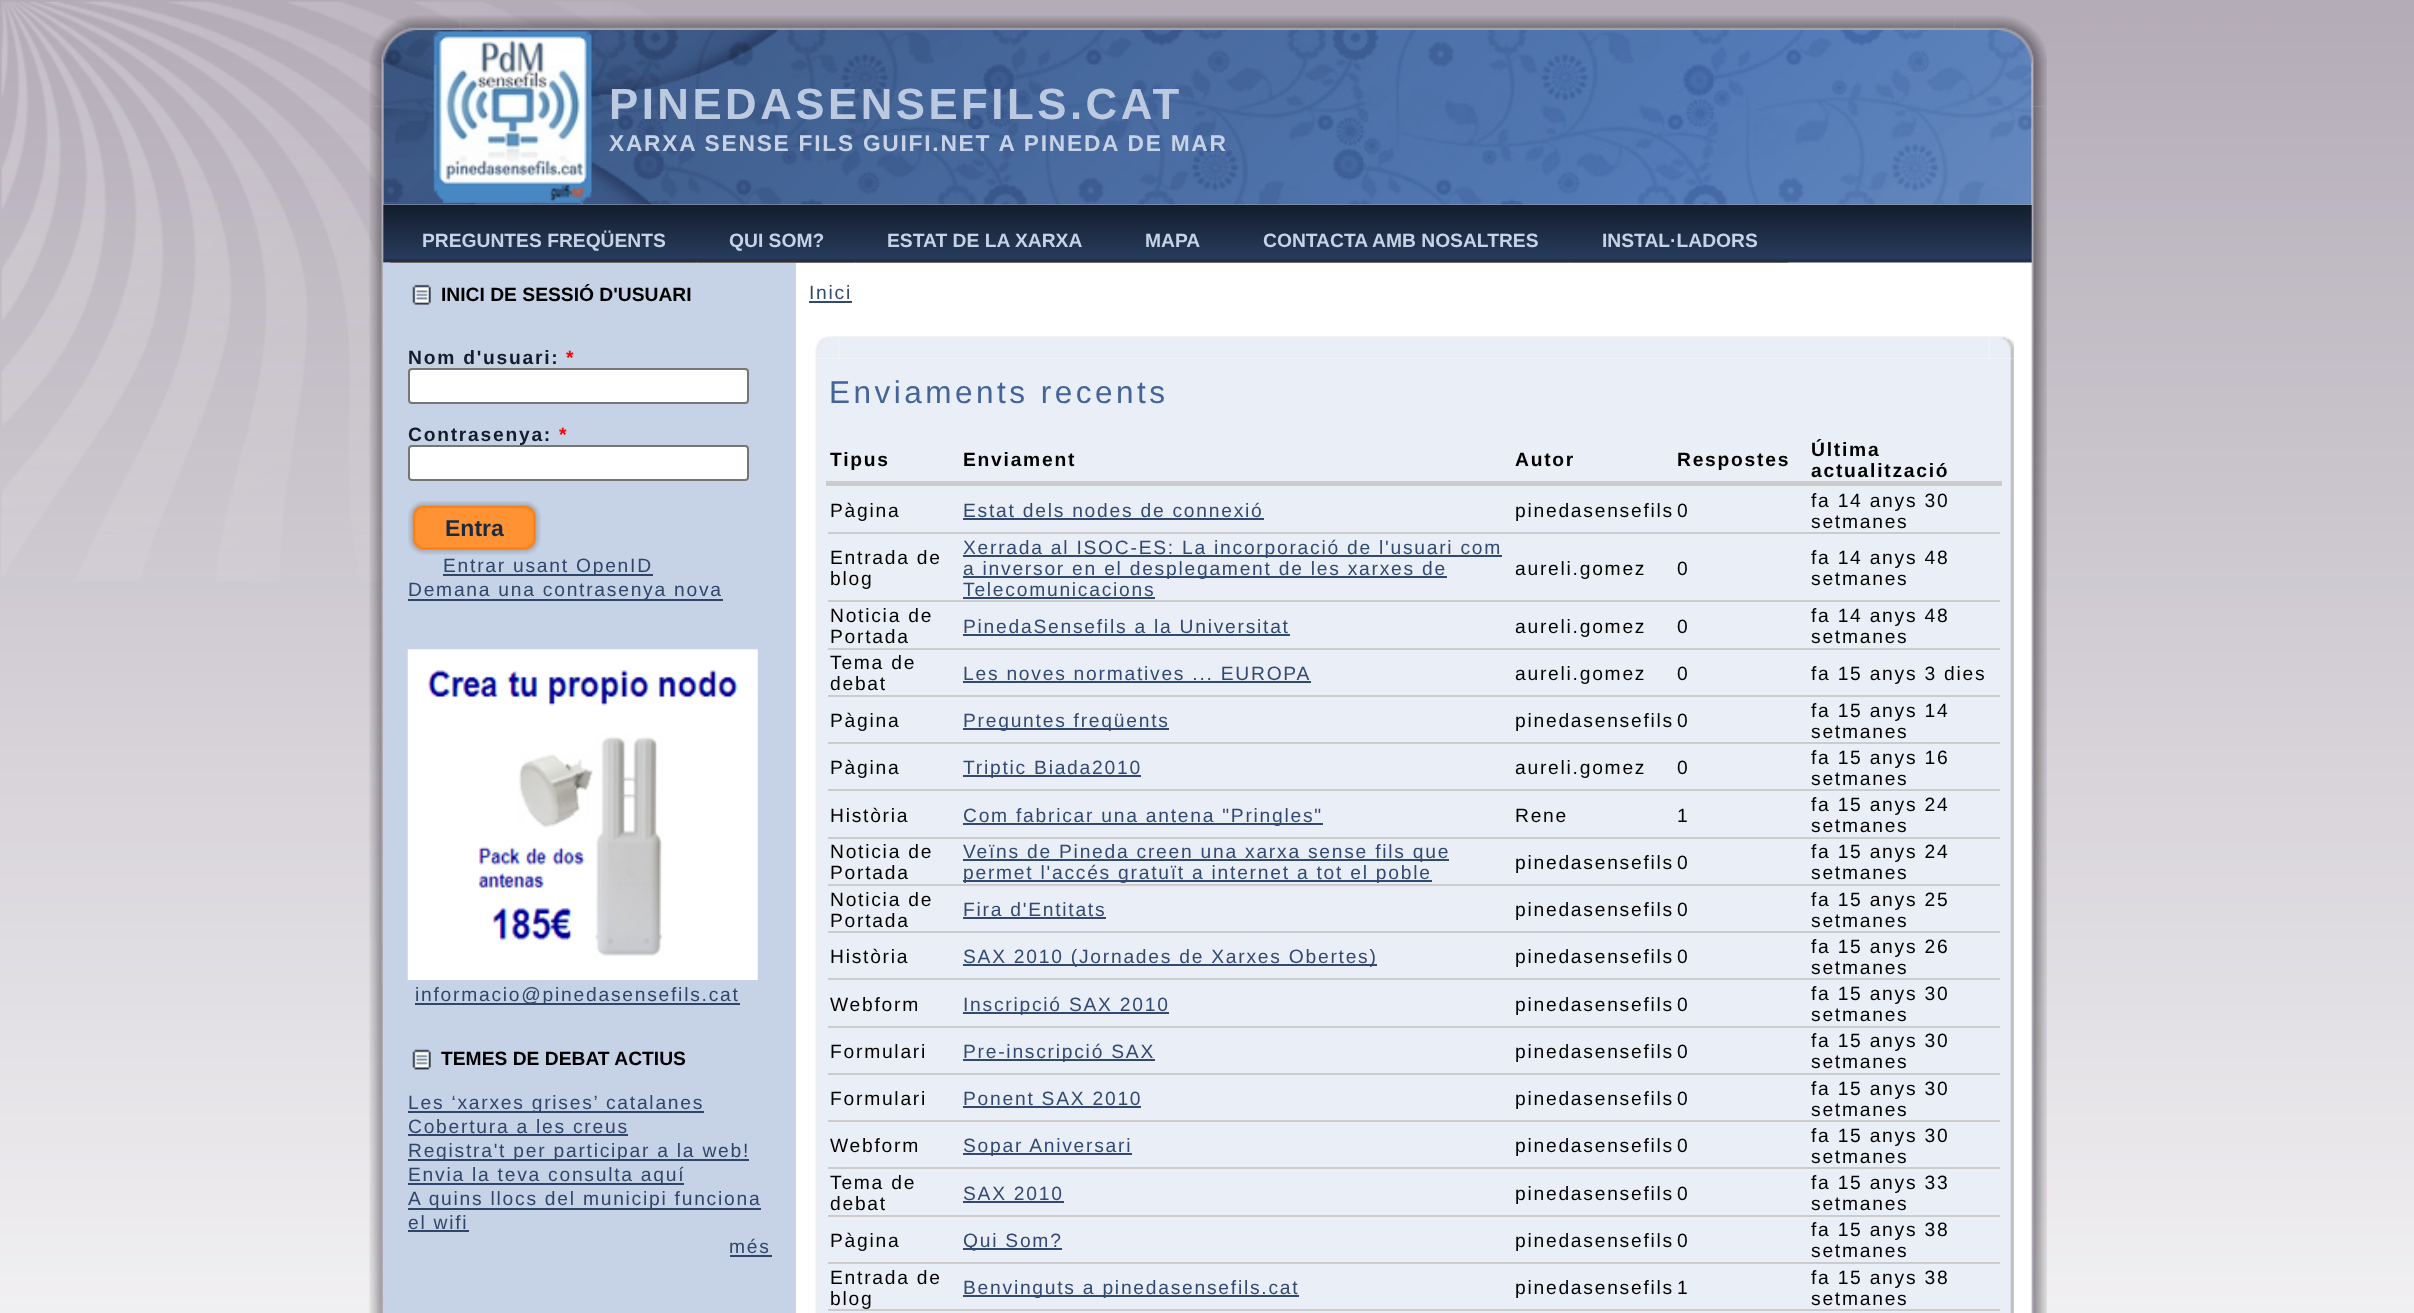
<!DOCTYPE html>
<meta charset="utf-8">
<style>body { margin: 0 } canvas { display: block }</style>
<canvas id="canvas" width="2414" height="1313"></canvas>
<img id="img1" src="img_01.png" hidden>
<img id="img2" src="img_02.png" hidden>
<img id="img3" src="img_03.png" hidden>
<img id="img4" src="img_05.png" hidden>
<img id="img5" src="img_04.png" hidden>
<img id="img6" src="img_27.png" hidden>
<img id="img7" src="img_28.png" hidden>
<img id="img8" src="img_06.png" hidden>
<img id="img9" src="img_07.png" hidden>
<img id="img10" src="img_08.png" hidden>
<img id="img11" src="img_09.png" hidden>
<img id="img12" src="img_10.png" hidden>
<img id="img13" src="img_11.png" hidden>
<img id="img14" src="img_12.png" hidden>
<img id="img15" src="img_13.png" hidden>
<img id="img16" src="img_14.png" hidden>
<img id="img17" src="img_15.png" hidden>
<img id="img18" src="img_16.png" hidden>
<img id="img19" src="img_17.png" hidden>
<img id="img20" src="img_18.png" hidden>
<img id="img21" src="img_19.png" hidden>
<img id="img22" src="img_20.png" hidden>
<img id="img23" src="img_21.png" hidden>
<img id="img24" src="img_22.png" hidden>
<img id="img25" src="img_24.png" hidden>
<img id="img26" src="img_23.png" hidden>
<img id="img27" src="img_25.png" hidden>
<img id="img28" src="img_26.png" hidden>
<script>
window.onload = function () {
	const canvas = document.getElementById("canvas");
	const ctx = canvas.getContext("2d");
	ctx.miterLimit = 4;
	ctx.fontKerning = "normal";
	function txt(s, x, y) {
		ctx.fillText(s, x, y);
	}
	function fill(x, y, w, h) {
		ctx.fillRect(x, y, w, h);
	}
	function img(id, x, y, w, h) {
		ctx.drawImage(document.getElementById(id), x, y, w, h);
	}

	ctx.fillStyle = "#FFFFFF";
	fill(0, 0, 2414, 1313);
	img("img1", 0, 0, 2414, 1313);
	img("img2", 1, 1, 663, 581);
	img("img3", 369, 15, 92, 92);
	img("img4", 1954, 15, 93, 92);
	img("img5", 460, 15, 1495, 15);
	img("img6", 369, 107, 91, 1206);
	fill(460, 204, 1495, 1109);
	img("img7", 1955, 107, 92, 1206);
	img("img8", 383, 29, 1649, 176);
	img("img9", 418, 64, 1576, 106);
	img("img10", 383, 204, 1649, 59);
	img("img11", 390, 262, 305, 1);
	img("img12", 694, 262, 3, 1);
	img("img13", 696, 262, 158, 1);
	img("img14", 854, 262, 2, 1);
	img("img15", 856, 262, 256, 1);
	img("img16", 1111, 262, 2, 1);
	img("img17", 1113, 262, 118, 1);
	img("img16", 1230, 262, 2, 1);
	ctx.fillStyle = "#746964";
	fill(1232, 262, 336, 1);
	img("img14", 1568, 262, 2, 1);
	img("img18", 1570, 262, 217, 1);
	img("img12", 1786, 262, 3, 1);
	ctx.fillStyle = "#C6D2E6";
	fill(383, 263, 413, 1050);
	img("img19", 412, 284, 19, 21);
	ctx.fillStyle = "#FFFFFF";
	ctx.beginPath();
	ctx.roundRect(409, 369, 339, 34, 3);
	ctx.fill();
	ctx.strokeStyle = "#767676";
	ctx.lineWidth = 2;
	ctx.stroke();
	ctx.beginPath();
	ctx.roundRect(409, 446, 339, 34, 3);
	ctx.fill();
	ctx.stroke();
	img("img20", 408, 501, 110, 54);
	img("img21", 518, 501, 23, 54);
	ctx.fillStyle = "#2F466A";
	fill(443, 574, 210, 2);
	fill(408, 599, 315, 2);
	img("img22", 407, 649, 351, 331);
	fill(415, 1003, 325, 2);
	img("img23", 412, 1049, 19, 21);
	fill(408, 1111, 296, 2);
	fill(408, 1134, 220, 2);
	fill(408, 1159, 341, 2);
	fill(408, 1183, 276, 2);
	fill(408, 1208, 353, 2);
	fill(408, 1230, 61, 2);
	fill(730, 1255, 42, 2);
	ctx.fillStyle = "#324A71";
	fill(809, 301, 43, 2);
	img("img24", 815, 336, 24, 23);
	img("img25", 1989, 336, 25, 23);
	img("img26", 838, 336, 1152, 23);
	img("img27", 815, 359, 23, 954);
	ctx.fillStyle = "#EAEEF6";
	fill(838, 359, 1152, 954);
	img("img28", 1990, 359, 24, 954);
	ctx.fillStyle = "#CCCCCC";
	fill(826, 481, 1176, 5);
	fill(828, 532, 1172, 2);
	ctx.fillStyle = "#324A71";
	fill(963, 518, 301, 2);
	ctx.fillStyle = "#CCCCCC";
	fill(828, 600, 1172, 2);
	ctx.fillStyle = "#324A71";
	fill(963, 555, 539, 2);
	fill(963, 576, 484, 2);
	fill(963, 597, 192, 2);
	ctx.fillStyle = "#CCCCCC";
	fill(828, 648, 1172, 2);
	ctx.fillStyle = "#324A71";
	fill(963, 634, 327, 2);
	ctx.fillStyle = "#CCCCCC";
	fill(828, 695, 1172, 2);
	ctx.fillStyle = "#324A71";
	fill(963, 681, 348, 2);
	ctx.fillStyle = "#CCCCCC";
	fill(828, 742, 1172, 2);
	ctx.fillStyle = "#324A71";
	fill(963, 728, 206, 2);
	ctx.fillStyle = "#CCCCCC";
	fill(828, 789, 1172, 2);
	ctx.fillStyle = "#324A71";
	fill(963, 775, 178, 2);
	ctx.fillStyle = "#CCCCCC";
	fill(828, 837, 1172, 2);
	ctx.fillStyle = "#324A71";
	fill(963, 823, 360, 2);
	ctx.fillStyle = "#CCCCCC";
	fill(828, 884, 1172, 2);
	ctx.fillStyle = "#324A71";
	fill(963, 859, 486, 2);
	fill(963, 880, 469, 2);
	ctx.fillStyle = "#CCCCCC";
	fill(828, 931, 1172, 2);
	ctx.fillStyle = "#324A71";
	fill(963, 917, 143, 2);
	ctx.fillStyle = "#CCCCCC";
	fill(828, 978, 1172, 2);
	ctx.fillStyle = "#324A71";
	fill(963, 964, 414, 2);
	ctx.fillStyle = "#CCCCCC";
	fill(828, 1026, 1172, 2);
	ctx.fillStyle = "#324A71";
	fill(963, 1012, 206, 2);
	ctx.fillStyle = "#CCCCCC";
	fill(828, 1073, 1172, 2);
	ctx.fillStyle = "#324A71";
	fill(963, 1059, 192, 2);
	ctx.fillStyle = "#CCCCCC";
	fill(828, 1120, 1172, 2);
	ctx.fillStyle = "#324A71";
	fill(963, 1106, 178, 2);
	ctx.fillStyle = "#CCCCCC";
	fill(828, 1167, 1172, 2);
	ctx.fillStyle = "#324A71";
	fill(963, 1153, 169, 2);
	ctx.fillStyle = "#CCCCCC";
	fill(828, 1215, 1172, 2);
	ctx.fillStyle = "#324A71";
	fill(963, 1201, 101, 2);
	ctx.fillStyle = "#CCCCCC";
	fill(828, 1262, 1172, 2);
	ctx.fillStyle = "#324A71";
	fill(963, 1248, 99, 2);
	ctx.fillStyle = "#CCCCCC";
	fill(828, 1309, 1172, 2);
	ctx.fillStyle = "#324A71";
	fill(963, 1295, 336, 2);
	ctx.letterSpacing = "3.5px";
	ctx.font = "bold 43.75px Liberation Sans";
	ctx.fillStyle = "#BCCAE1";
	txt("PINEDASENSEFILS.CAT", 609, 119);
	ctx.letterSpacing = "1.75px";
	ctx.font = "bold 22.75px Liberation Sans";
	ctx.fillStyle = "#C6D2E6";
	txt("XARXA SENSE FILS GUIFI.NET A PINEDA DE MAR", 609, 151);
	ctx.letterSpacing = "0px";
	ctx.font = "bold 19.25px Liberation Sans";
	txt("PREGUNTES FREQÜENTS", 422, 247);
	txt("QUI SOM?", 729, 247);
	txt("ESTAT DE LA XARXA", 887, 247);
	txt("MAPA", 1145, 247);
	txt("CONTACTA AMB NOSALTRES", 1263, 247);
	txt("INSTAL·LADORS", 1602, 247);
	ctx.fillStyle = "#000000";
	txt("INICI DE SESSIÓ D'USUARI", 441, 301);
	ctx.letterSpacing = "1.75px";
	ctx.fillStyle = "#131C2B";
	txt("Nom d'usuari:", 408, 364);
	ctx.fillStyle = "#FF0000";
	txt("*", 566, 364);
	ctx.fillStyle = "#131C2B";
	txt("Contrasenya:", 408, 441);
	ctx.fillStyle = "#FF0000";
	txt("*", 559, 441);
	ctx.letterSpacing = "0px";
	ctx.font = "bold 23px Liberation Sans";
	ctx.fillStyle = "#1C2A40";
	txt("Entra", 445, 536);
	ctx.letterSpacing = "1.75px";
	ctx.font = "19.25px Liberation Sans";
	ctx.fillStyle = "#2F466A";
	txt("Entrar usant OpenID", 443, 572);
	txt("Demana una contrasenya nova", 408, 596);
	txt("informacio@pinedasensefils.cat", 415, 1001);
	ctx.letterSpacing = "0px";
	ctx.font = "bold 19.25px Liberation Sans";
	ctx.fillStyle = "#000000";
	txt("TEMES DE DEBAT ACTIUS", 441, 1065);
	ctx.letterSpacing = "1.75px";
	ctx.font = "19.25px Liberation Sans";
	ctx.fillStyle = "#2F466A";
	txt("Les ‘xarxes grises’ catalanes", 408, 1109);
	txt("Cobertura a les creus", 408, 1133);
	txt("Registra't per participar a la web!", 408, 1157);
	txt("Envia la teva consulta aquí", 408, 1181);
	txt("A quins llocs del municipi funciona", 408, 1205);
	txt("el wifi", 408, 1229);
	txt("més", 729, 1253);
	ctx.fillStyle = "#324A71";
	txt("Inici", 809, 299);
	ctx.letterSpacing = "3.5px";
	ctx.font = "31.5px Liberation Sans";
	ctx.fillStyle = "#436498";
	txt("Enviaments recents", 829, 403);
	ctx.letterSpacing = "1.75px";
	ctx.font = "bold 19.25px Liberation Sans";
	ctx.fillStyle = "#000000";
	txt("Tipus", 830, 466);
	txt("Enviament", 963, 466);
	txt("Autor", 1515, 466);
	txt("Respostes", 1677, 466);
	txt("Última", 1811, 456);
	txt("actualització", 1811, 477);
	ctx.font = "19.25px Liberation Sans";
	txt("Pàgina", 830, 517);
	ctx.fillStyle = "#324A71";
	txt("Estat dels nodes de connexió", 963, 517);
	ctx.fillStyle = "#000000";
	txt("pinedasensefils", 1515, 517);
	txt("0", 1677, 517);
	txt("fa 14 anys 30", 1811, 507);
	txt("setmanes", 1811, 528);
	txt("Entrada de", 830, 564);
	txt("blog", 830, 585);
	ctx.fillStyle = "#324A71";
	txt("Xerrada al ISOC-ES: La incorporació de l'usuari com", 963, 554);
	txt("a inversor en el desplegament de les xarxes de", 963, 575);
	txt("Telecomunicacions", 963, 596);
	ctx.fillStyle = "#000000";
	txt("aureli.gomez", 1515, 575);
	txt("0", 1677, 575);
	txt("fa 14 anys 48", 1811, 564);
	txt("setmanes", 1811, 585);
	txt("Noticia de", 830, 622);
	txt("Portada", 830, 643);
	ctx.fillStyle = "#324A71";
	txt("PinedaSensefils a la Universitat", 963, 633);
	ctx.fillStyle = "#000000";
	txt("aureli.gomez", 1515, 633);
	txt("0", 1677, 633);
	txt("fa 14 anys 48", 1811, 622);
	txt("setmanes", 1811, 643);
	txt("Tema de", 830, 669);
	txt("debat", 830, 690);
	ctx.fillStyle = "#324A71";
	txt("Les noves normatives ... EUROPA", 963, 680);
	ctx.fillStyle = "#000000";
	txt("aureli.gomez", 1515, 680);
	txt("0", 1677, 680);
	txt("fa 15 anys 3 dies", 1811, 680);
	txt("Pàgina", 830, 727);
	ctx.fillStyle = "#324A71";
	txt("Preguntes freqüents", 963, 727);
	ctx.fillStyle = "#000000";
	txt("pinedasensefils", 1515, 727);
	txt("0", 1677, 727);
	txt("fa 15 anys 14", 1811, 717);
	txt("setmanes", 1811, 738);
	txt("Pàgina", 830, 774);
	ctx.fillStyle = "#324A71";
	txt("Triptic Biada2010", 963, 774);
	ctx.fillStyle = "#000000";
	txt("aureli.gomez", 1515, 774);
	txt("0", 1677, 774);
	txt("fa 15 anys 16", 1811, 764);
	txt("setmanes", 1811, 785);
	txt("Història", 830, 822);
	ctx.fillStyle = "#324A71";
	txt("Com fabricar una antena \"Pringles\"", 963, 822);
	ctx.fillStyle = "#000000";
	txt("Rene", 1515, 822);
	txt("1", 1677, 822);
	txt("fa 15 anys 24", 1811, 811);
	txt("setmanes", 1811, 832);
	txt("Noticia de", 830, 858);
	txt("Portada", 830, 879);
	ctx.fillStyle = "#324A71";
	txt("Veïns de Pineda creen una xarxa sense fils que", 963, 858);
	txt("permet l'accés gratuït a internet a tot el poble", 963, 879);
	ctx.fillStyle = "#000000";
	txt("pinedasensefils", 1515, 869);
	txt("0", 1677, 869);
	txt("fa 15 anys 24", 1811, 858);
	txt("setmanes", 1811, 879);
	txt("Noticia de", 830, 906);
	txt("Portada", 830, 927);
	ctx.fillStyle = "#324A71";
	txt("Fira d'Entitats", 963, 916);
	ctx.fillStyle = "#000000";
	txt("pinedasensefils", 1515, 916);
	txt("0", 1677, 916);
	txt("fa 15 anys 25", 1811, 906);
	txt("setmanes", 1811, 927);
	txt("Història", 830, 963);
	ctx.fillStyle = "#324A71";
	txt("SAX 2010 (Jornades de Xarxes Obertes)", 963, 963);
	ctx.fillStyle = "#000000";
	txt("pinedasensefils", 1515, 963);
	txt("0", 1677, 963);
	txt("fa 15 anys 26", 1811, 953);
	txt("setmanes", 1811, 974);
	txt("Webform", 830, 1011);
	ctx.fillStyle = "#324A71";
	txt("Inscripció SAX 2010", 963, 1011);
	ctx.fillStyle = "#000000";
	txt("pinedasensefils", 1515, 1011);
	txt("0", 1677, 1011);
	txt("fa 15 anys 30", 1811, 1000);
	txt("setmanes", 1811, 1021);
	txt("Formulari", 830, 1058);
	ctx.fillStyle = "#324A71";
	txt("Pre-inscripció SAX", 963, 1058);
	ctx.fillStyle = "#000000";
	txt("pinedasensefils", 1515, 1058);
	txt("0", 1677, 1058);
	txt("fa 15 anys 30", 1811, 1047);
	txt("setmanes", 1811, 1068);
	txt("Formulari", 830, 1105);
	ctx.fillStyle = "#324A71";
	txt("Ponent SAX 2010", 963, 1105);
	ctx.fillStyle = "#000000";
	txt("pinedasensefils", 1515, 1105);
	txt("0", 1677, 1105);
	txt("fa 15 anys 30", 1811, 1095);
	txt("setmanes", 1811, 1116);
	txt("Webform", 830, 1152);
	ctx.fillStyle = "#324A71";
	txt("Sopar Aniversari", 963, 1152);
	ctx.fillStyle = "#000000";
	txt("pinedasensefils", 1515, 1152);
	txt("0", 1677, 1152);
	txt("fa 15 anys 30", 1811, 1142);
	txt("setmanes", 1811, 1163);
	txt("Tema de", 830, 1189);
	txt("debat", 830, 1210);
	ctx.fillStyle = "#324A71";
	txt("SAX 2010", 963, 1200);
	ctx.fillStyle = "#000000";
	txt("pinedasensefils", 1515, 1200);
	txt("0", 1677, 1200);
	txt("fa 15 anys 33", 1811, 1189);
	txt("setmanes", 1811, 1210);
	txt("Pàgina", 830, 1247);
	ctx.fillStyle = "#324A71";
	txt("Qui Som?", 963, 1247);
	ctx.fillStyle = "#000000";
	txt("pinedasensefils", 1515, 1247);
	txt("0", 1677, 1247);
	txt("fa 15 anys 38", 1811, 1236);
	txt("setmanes", 1811, 1257);
	txt("Entrada de", 830, 1284);
	txt("blog", 830, 1305);
	ctx.fillStyle = "#324A71";
	txt("Benvinguts a pinedasensefils.cat", 963, 1294);
	ctx.fillStyle = "#000000";
	txt("pinedasensefils", 1515, 1294);
	txt("1", 1677, 1294);
	txt("fa 15 anys 38", 1811, 1284);
	txt("setmanes", 1811, 1305);
};
</script>
